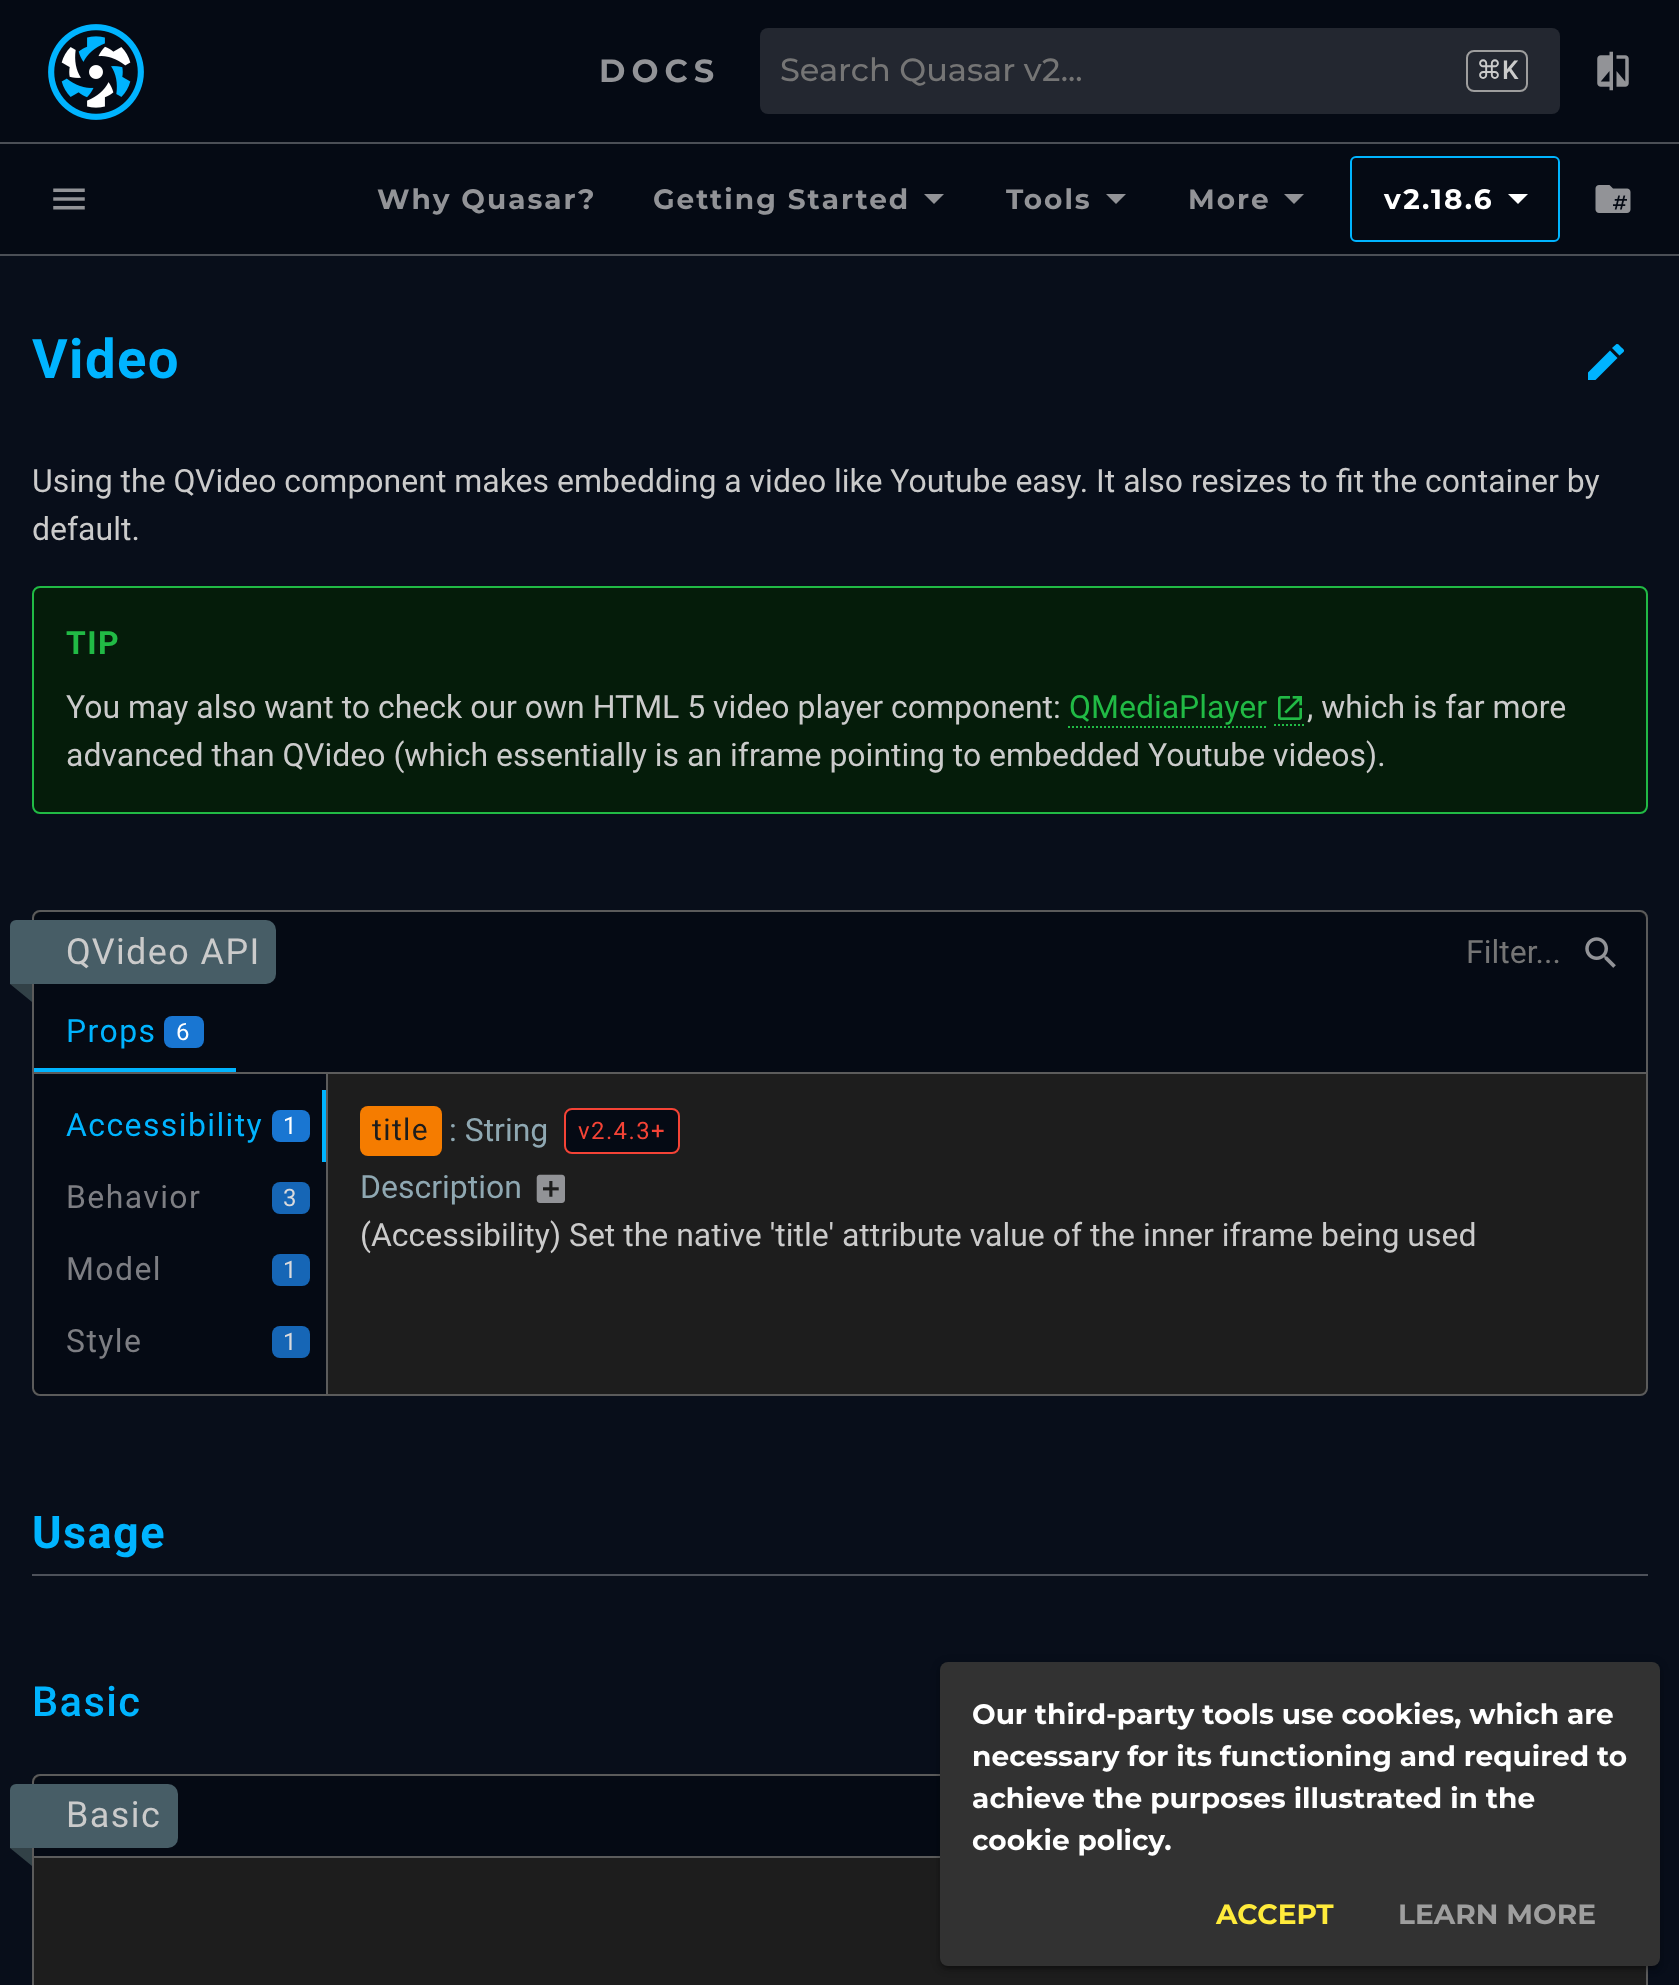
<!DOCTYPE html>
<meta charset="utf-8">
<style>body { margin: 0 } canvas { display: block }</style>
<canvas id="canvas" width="1679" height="1985"></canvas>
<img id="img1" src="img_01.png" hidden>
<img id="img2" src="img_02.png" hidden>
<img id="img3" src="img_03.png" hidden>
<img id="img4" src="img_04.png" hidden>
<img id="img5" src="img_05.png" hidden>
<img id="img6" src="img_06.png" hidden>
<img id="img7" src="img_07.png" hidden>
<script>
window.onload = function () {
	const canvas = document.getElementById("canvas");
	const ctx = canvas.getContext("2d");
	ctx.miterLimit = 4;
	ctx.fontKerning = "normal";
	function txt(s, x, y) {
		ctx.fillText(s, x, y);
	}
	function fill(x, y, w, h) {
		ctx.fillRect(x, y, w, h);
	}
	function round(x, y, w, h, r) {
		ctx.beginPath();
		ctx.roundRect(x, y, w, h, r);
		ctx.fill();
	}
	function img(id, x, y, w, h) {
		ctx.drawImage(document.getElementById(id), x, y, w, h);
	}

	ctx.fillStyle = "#080E1A";
	fill(0, 0, 1679, 1985);
	ctx.fillStyle = "#050A14";
	fill(0, 0, 1679, 254);
	ctx.fillStyle = "#4B4F56";
	fill(0, 254, 1679, 2);
	fill(0, 142, 1679, 2);
	img("img1", 48, 24, 96, 96);
	ctx.fillStyle = "#232730";
	round(760, 28, 800, 86, 8);
	ctx.beginPath();
	ctx.roundRect(1467, 51, 60, 40, 7);
	ctx.strokeStyle = "#9E9E9E";
	ctx.lineWidth = 2;
	ctx.stroke();
	img("img2", 1597, 51, 32, 40);
	img("img3", 53, 188, 32, 22);
	ctx.fillStyle = "#929397";
	ctx.beginPath();
	ctx.moveTo(924, 194);
	ctx.lineTo(934, 204);
	ctx.lineTo(944, 194);
	ctx.closePath();
	ctx.fill();
	ctx.beginPath();
	ctx.moveTo(1106, 194);
	ctx.lineTo(1116, 204);
	ctx.lineTo(1126, 194);
	ctx.closePath();
	ctx.fill();
	ctx.beginPath();
	ctx.moveTo(1284, 194);
	ctx.lineTo(1294, 204);
	ctx.lineTo(1304, 194);
	ctx.closePath();
	ctx.fill();
	ctx.beginPath();
	ctx.roundRect(1351, 157, 208, 84, 5);
	ctx.strokeStyle = "#00B4FF";
	ctx.stroke();
	ctx.fillStyle = "#050A14";
	round(1352, 158, 206, 82, 6);
	ctx.fillStyle = "#FFFFFF";
	ctx.beginPath();
	ctx.moveTo(1508, 194);
	ctx.lineTo(1518, 204);
	ctx.lineTo(1528, 194);
	ctx.closePath();
	ctx.fill();
	img("img4", 1595, 185, 36, 28);
	ctx.fillStyle = "#00B4FF";
	ctx.beginPath();
	ctx.moveTo(1623.5, 352);
	ctx.bezierCurveTo(1625.5, 350, 1622, 348, 1621, 347);
	ctx.bezierCurveTo(1620, 346, 1618.5, 343.5, 1616.5, 344);
	ctx.lineTo(1612, 348);
	ctx.lineTo(1619.5, 355.5);
	ctx.moveTo(1588, 372.5);
	ctx.lineTo(1588, 380);
	ctx.lineTo(1595.5, 380);
	ctx.lineTo(1617.5, 358);
	ctx.lineTo(1610, 350.5);
	ctx.closePath();
	ctx.fill();
	ctx.fillStyle = "#051C0A";
	ctx.beginPath();
	ctx.roundRect(33, 587, 1614, 226, 7);
	ctx.fill();
	ctx.strokeStyle = "#21BA45";
	ctx.stroke();
	ctx.beginPath();
	ctx.moveTo(1068, 727);
	ctx.lineTo(1266, 727);
	ctx.setLineDash([2, 2]);
	ctx.stroke();
	ctx.beginPath();
	ctx.moveTo(1274, 725);
	ctx.lineTo(1306, 725);
	ctx.stroke();
	img("img5", 1278, 696, 24, 24);
	ctx.fillStyle = "#1D1D1D";
	round(32, 910, 1616, 486, 8);
	ctx.beginPath();
	ctx.roundRect(33, 911, 1614, 484, 7);
	ctx.strokeStyle = "rgba(255, 255, 255, 0.28)";
	ctx.setLineDash([]);
	ctx.stroke();
	ctx.fillStyle = "#050A14";
	ctx.beginPath();
	ctx.roundRect(34, 912, 1612, 80, [8, 8, 0, 0]);
	ctx.fill();
	ctx.fillStyle = "#475D66";
	ctx.beginPath();
	ctx.roundRect(10, 920, 266, 64, [6, 10, 10, 0]);
	ctx.fill();
	ctx.fillStyle = "#324147";
	ctx.beginPath();
	ctx.moveTo(10, 984);
	ctx.lineTo(32, 984);
	ctx.lineTo(32, 1002);
	ctx.closePath();
	ctx.fill();
	img("img6", 1585, 937, 31, 31);
	ctx.fillStyle = "#050A14";
	fill(34, 992, 1612, 80);
	ctx.fillStyle = "#1976D2";
	round(164, 1016, 40, 32, 8);
	ctx.fillStyle = "#00B4FF";
	fill(34, 1068, 202, 4);
	ctx.fillStyle = "#5C5C5C";
	fill(34, 1072, 1612, 2);
	ctx.fillStyle = "#050A14";
	ctx.beginPath();
	ctx.roundRect(34, 1074, 292, 320, [0, 0, 0, 8]);
	ctx.fill();
	ctx.beginPath();
	ctx.roundRect(34, 1074, 292, 320, [8, 8, 0, 8]);
	ctx.fill();
	ctx.fillStyle = "#1976D2";
	round(272, 1110, 38, 32, 8);
	ctx.fillStyle = "#00B4FF";
	fill(322, 1090, 4, 72);
	ctx.fillStyle = "#1666B6";
	round(272, 1182, 38, 32, 8);
	round(272, 1254, 38, 32, 8);
	round(272, 1326, 38, 32, 8);
	ctx.fillStyle = "#5C5C5C";
	fill(326, 1074, 2, 320);
	ctx.fillStyle = "#F57C00";
	round(360, 1106, 82, 50, 8);
	ctx.fillStyle = "#050A14";
	ctx.beginPath();
	ctx.roundRect(565, 1109, 114, 44, 7);
	ctx.fill();
	ctx.strokeStyle = "#F44336";
	ctx.stroke();
	img("img7", 536, 1174, 29, 29);
	ctx.fillStyle = "#4D515A";
	fill(32, 1574, 1616, 2);
	ctx.fillStyle = "#1D1D1D";
	round(32, 1774, 1616, 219, 8);
	ctx.beginPath();
	ctx.roundRect(33, 1775, 1614, 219, 7);
	ctx.strokeStyle = "rgba(255, 255, 255, 0.28)";
	ctx.stroke();
	ctx.fillStyle = "#050A14";
	ctx.beginPath();
	ctx.roundRect(34, 1776, 1612, 80, [8, 8, 0, 0]);
	ctx.fill();
	ctx.fillStyle = "#475D66";
	ctx.beginPath();
	ctx.roundRect(10, 1784, 168, 64, [6, 10, 10, 0]);
	ctx.fill();
	ctx.fillStyle = "#324147";
	ctx.beginPath();
	ctx.moveTo(10, 1848);
	ctx.lineTo(32, 1848);
	ctx.lineTo(32, 1866);
	ctx.closePath();
	ctx.fill();
	ctx.fillStyle = "#5C5C5C";
	fill(34, 1856, 906, 2);
	ctx.fillStyle = "rgba(0, 0, 0, 0.12)";
	ctx.filter = "blur(1px)";
	ctx.beginPath();
	ctx.roundRect(944, 1672, 712, 296, 4);
	ctx.fill();
	ctx.filter = "none";
	ctx.fillStyle = "rgba(0, 0, 0, 0.14)";
	ctx.filter = "blur(2px)";
	ctx.beginPath();
	ctx.roundRect(940, 1666, 720, 304, 8);
	ctx.fill();
	ctx.filter = "none";
	ctx.fillStyle = "rgba(0, 0, 0, 0.2)";
	ctx.filter = "blur(5px)";
	ctx.beginPath();
	ctx.roundRect(940, 1664, 720, 304, 8);
	ctx.fill();
	ctx.filter = "none";
	ctx.fillStyle = "#323232";
	round(940, 1662, 720, 304, 8);
	ctx.letterSpacing = "6px";
	ctx.font = "bold 32px Montserrat";
	ctx.fillStyle = "#929397";
	txt("DOCS", 599, 82);
	ctx.letterSpacing = "0px";
	ctx.font = "500 32px Montserrat";
	ctx.fillStyle = "#757575";
	txt("Search Quasar v2...", 780, 81);
	ctx.font = "26px DejaVu Sans";
	ctx.fillStyle = "#CBCBCB";
	txt("⌘", 1476, 79);
	ctx.font = "500 26px Roboto";
	txt("K", 1502, 79);
	ctx.letterSpacing = "2px";
	ctx.font = "bold 28px Montserrat";
	ctx.fillStyle = "#929397";
	txt("Why Quasar?", 377, 209);
	txt("Getting Started", 653, 209);
	txt("Tools", 1006, 209);
	txt("More", 1188, 209);
	ctx.fillStyle = "#FFFFFF";
	txt("v2.18.6", 1384, 209);
	ctx.letterSpacing = "1.4px";
	ctx.font = "bold 54.5px Roboto";
	ctx.fillStyle = "#00B4FF";
	txt("Video", 32, 378);
	ctx.letterSpacing = "0px";
	ctx.font = "32px Roboto";
	ctx.fillStyle = "#CBCBCB";
	txt("Using the QVideo component makes embedding a video like Youtube easy. It also resizes to fit the container by", 32, 492);
	txt("default.", 32, 540);
	ctx.letterSpacing = "1.4px";
	ctx.font = "bold 32px Roboto";
	ctx.fillStyle = "#21BA45";
	txt("TIP", 66, 654);
	ctx.letterSpacing = "0px";
	ctx.font = "32px Roboto";
	ctx.fillStyle = "#CBCBCB";
	txt("You may also want to check our own HTML 5 video player component:", 66, 718);
	ctx.fillStyle = "#21BA45";
	txt("QMediaPlayer", 1069, 718);
	ctx.fillStyle = "#CBCBCB";
	txt(", which is far more", 1307, 718);
	txt("advanced than QVideo (which essentially is an iframe pointing to embedded Youtube videos).", 66, 766);
	ctx.letterSpacing = "1.4px";
	ctx.font = "36px Roboto";
	txt("QVideo API", 66, 964);
	ctx.letterSpacing = "0px";
	ctx.font = "32px Roboto";
	ctx.fillStyle = "#757575";
	txt("Filter...", 1466, 963);
	ctx.letterSpacing = "1.4px";
	ctx.fillStyle = "#00B4FF";
	txt("Props", 66, 1042);
	ctx.font = "24px Roboto";
	ctx.fillStyle = "#FFFFFF";
	txt("6", 176, 1040);
	ctx.font = "32px Roboto";
	ctx.fillStyle = "#00B4FF";
	txt("Accessibility", 66, 1136);
	ctx.font = "24px Roboto";
	ctx.fillStyle = "#FFFFFF";
	txt("1", 283, 1134);
	ctx.font = "32px Roboto";
	ctx.fillStyle = "#7D7E83";
	txt("Behavior", 66, 1208);
	ctx.font = "24px Roboto";
	ctx.fillStyle = "#DADADC";
	txt("3", 283, 1206);
	ctx.font = "32px Roboto";
	ctx.fillStyle = "#7D7E83";
	txt("Model", 66, 1280);
	ctx.font = "24px Roboto";
	ctx.fillStyle = "#DADADC";
	txt("1", 283, 1278);
	ctx.font = "32px Roboto";
	ctx.fillStyle = "#7D7E83";
	txt("Style", 66, 1352);
	ctx.font = "24px Roboto";
	ctx.fillStyle = "#DADADC";
	txt("1", 283, 1350);
	ctx.font = "30px Roboto";
	ctx.fillStyle = "#1D1D1D";
	txt("title", 372, 1140);
	ctx.letterSpacing = "0px";
	ctx.font = "32px Roboto";
	ctx.fillStyle = "#8FA8B2";
	txt(": String", 449, 1141);
	ctx.letterSpacing = "1.4px";
	ctx.font = "24px Roboto";
	ctx.fillStyle = "#F44336";
	txt("v2.4.3+", 578, 1139);
	ctx.letterSpacing = "0px";
	ctx.font = "32px Roboto";
	ctx.fillStyle = "#8FA8B2";
	txt("Description", 360, 1198);
	ctx.fillStyle = "#CBCBCB";
	txt("(Accessibility) Set the native 'title' attribute value of the inner iframe being used", 360, 1246);
	ctx.letterSpacing = "1.4px";
	ctx.font = "bold 45px Roboto";
	ctx.fillStyle = "#00B4FF";
	txt("Usage", 32, 1548);
	ctx.font = "500 41.5px Roboto";
	txt("Basic", 32, 1716);
	ctx.font = "36px Roboto";
	ctx.fillStyle = "#CBCBCB";
	txt("Basic", 66, 1827);
	ctx.letterSpacing = "0px";
	ctx.font = "bold 28px Montserrat";
	ctx.fillStyle = "#FFFFFF";
	txt("Our third-party tools use cookies, which are", 972, 1724);
	txt("necessary for its functioning and required to", 972, 1766);
	txt("achieve the purposes illustrated in the", 972, 1808);
	txt("cookie policy.", 972, 1850);
	ctx.fillStyle = "#FFEB3B";
	txt("ACCEPT", 1216, 1924);
	ctx.fillStyle = "#9E9E9E";
	txt("LEARN MORE", 1398, 1924);
};
</script>
